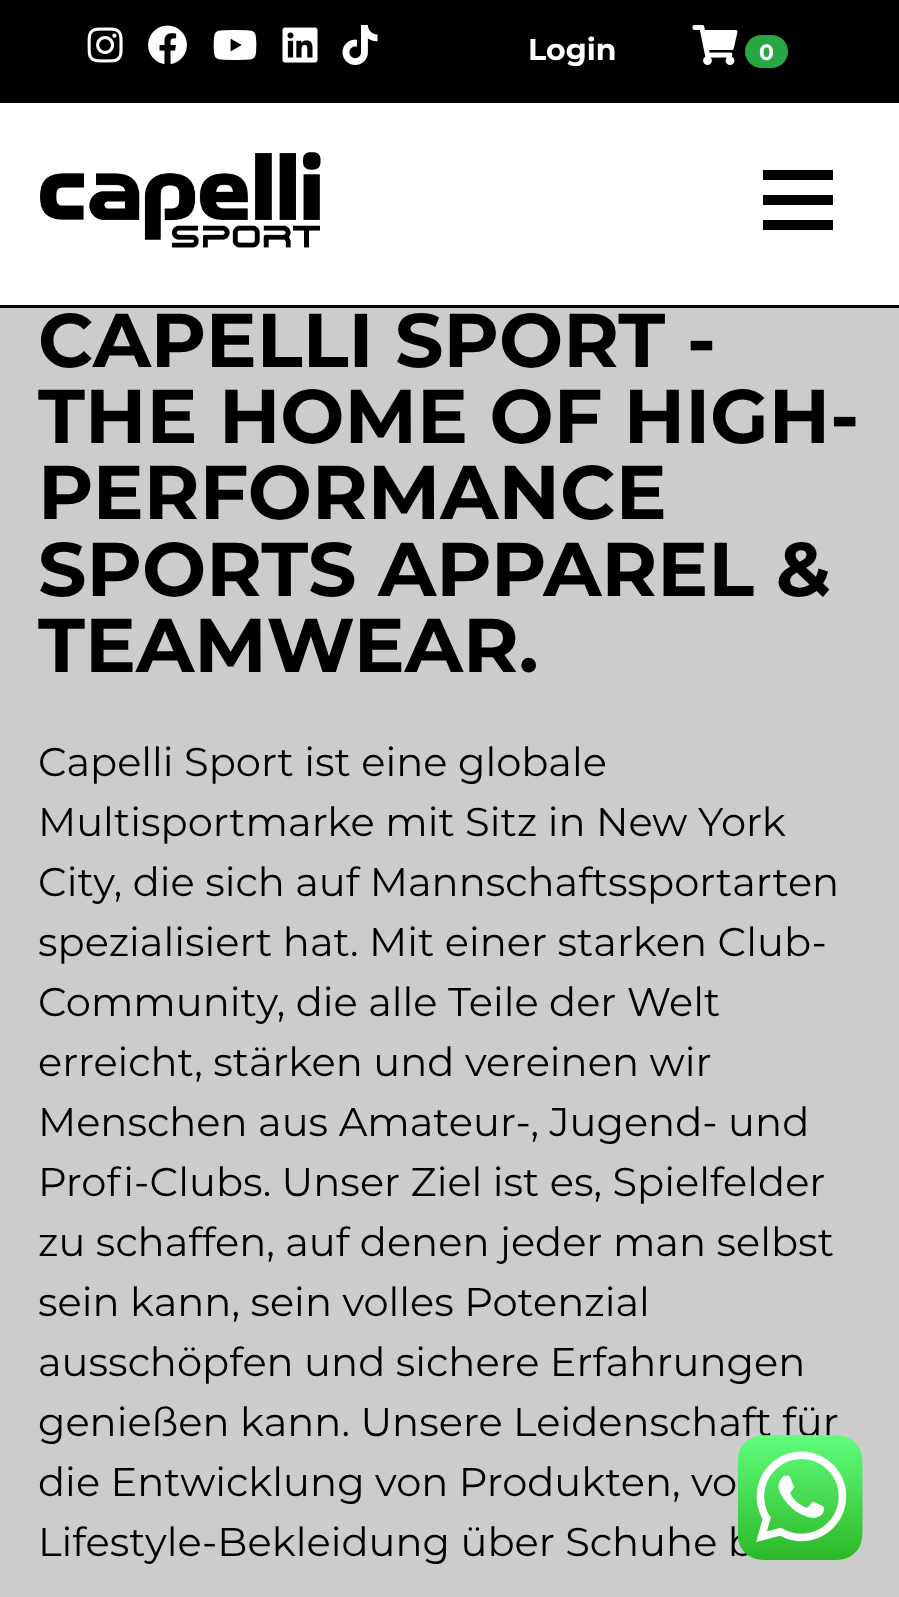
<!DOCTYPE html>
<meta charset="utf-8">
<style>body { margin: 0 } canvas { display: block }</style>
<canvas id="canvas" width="899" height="1597"></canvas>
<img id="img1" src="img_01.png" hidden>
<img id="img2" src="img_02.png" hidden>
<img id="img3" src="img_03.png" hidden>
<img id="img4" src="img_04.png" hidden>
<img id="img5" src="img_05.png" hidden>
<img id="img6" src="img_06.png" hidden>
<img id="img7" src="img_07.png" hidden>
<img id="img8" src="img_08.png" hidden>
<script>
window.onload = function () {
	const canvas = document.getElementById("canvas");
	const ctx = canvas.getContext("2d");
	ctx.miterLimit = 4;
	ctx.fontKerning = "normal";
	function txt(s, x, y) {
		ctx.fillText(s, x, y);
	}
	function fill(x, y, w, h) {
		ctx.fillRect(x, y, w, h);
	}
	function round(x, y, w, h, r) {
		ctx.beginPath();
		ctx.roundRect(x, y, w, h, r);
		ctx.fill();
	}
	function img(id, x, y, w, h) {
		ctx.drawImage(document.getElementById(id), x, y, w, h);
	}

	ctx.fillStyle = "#CCCCCC";
	fill(0, 0, 899, 1597);
	ctx.fillStyle = "#000000";
	fill(0, 0, 899, 103);
	img("img1", 87, 27, 36, 36);
	img("img2", 148, 25, 39, 40);
	img("img3", 213, 30, 44, 30);
	img("img4", 282, 27, 36, 36);
	img("img5", 342, 25, 36, 40);
	img("img6", 692, 25, 46, 40);
	ctx.fillStyle = "#28A745";
	round(745, 35, 43, 33, 16.5);
	ctx.fillStyle = "#FFFFFF";
	fill(0, 103, 899, 202);
	ctx.fillStyle = "#000000";
	fill(0, 305, 899, 3);
	img("img7", 40, 152, 281, 96);
	fill(763, 170, 70, 10);
	fill(763, 195, 70, 10);
	fill(763, 220, 70, 10);
	ctx.font = "bold 30px Montserrat";
	ctx.fillStyle = "#FFFFFF";
	txt("Login", 528, 60);
	ctx.font = "bold 22px Montserrat";
	txt("0", 759, 60);
	ctx.font = "bold 76px Montserrat";
	ctx.fillStyle = "#000000";
	txt("CAPELLI SPORT -", 38, 367);
	txt("THE HOME OF HIGH-", 38, 443);
	txt("PERFORMANCE", 38, 519);
	txt("SPORTS APPAREL &", 38, 596);
	txt("TEAMWEAR.", 38, 672);
	ctx.font = "40px Montserrat";
	txt("Capelli Sport ist eine globale", 38, 776);
	txt("Multisportmarke mit Sitz in New York", 38, 836);
	txt("City, die sich auf Mannschaftssportarten", 38, 896);
	txt("spezialisiert hat. Mit einer starken Club-", 38, 956);
	txt("Community, die alle Teile der Welt", 38, 1016);
	txt("erreicht, stärken und vereinen wir", 38, 1076);
	txt("Menschen aus Amateur-, Jugend- und", 38, 1136);
	txt("Profi-Clubs. Unser Ziel ist es, Spielfelder", 38, 1196);
	txt("zu schaffen, auf denen jeder man selbst", 38, 1256);
	txt("sein kann, sein volles Potenzial", 38, 1316);
	txt("ausschöpfen und sichere Erfahrungen", 38, 1376);
	txt("genießen kann. Unsere Leidenschaft für", 38, 1436);
	txt("die Entwicklung von Produkten, vo", 38, 1496);
	txt("Lifestyle-Bekleidung über Schuhe b", 38, 1556);
	img("img8", 738, 1435, 125, 125);
};
</script>
